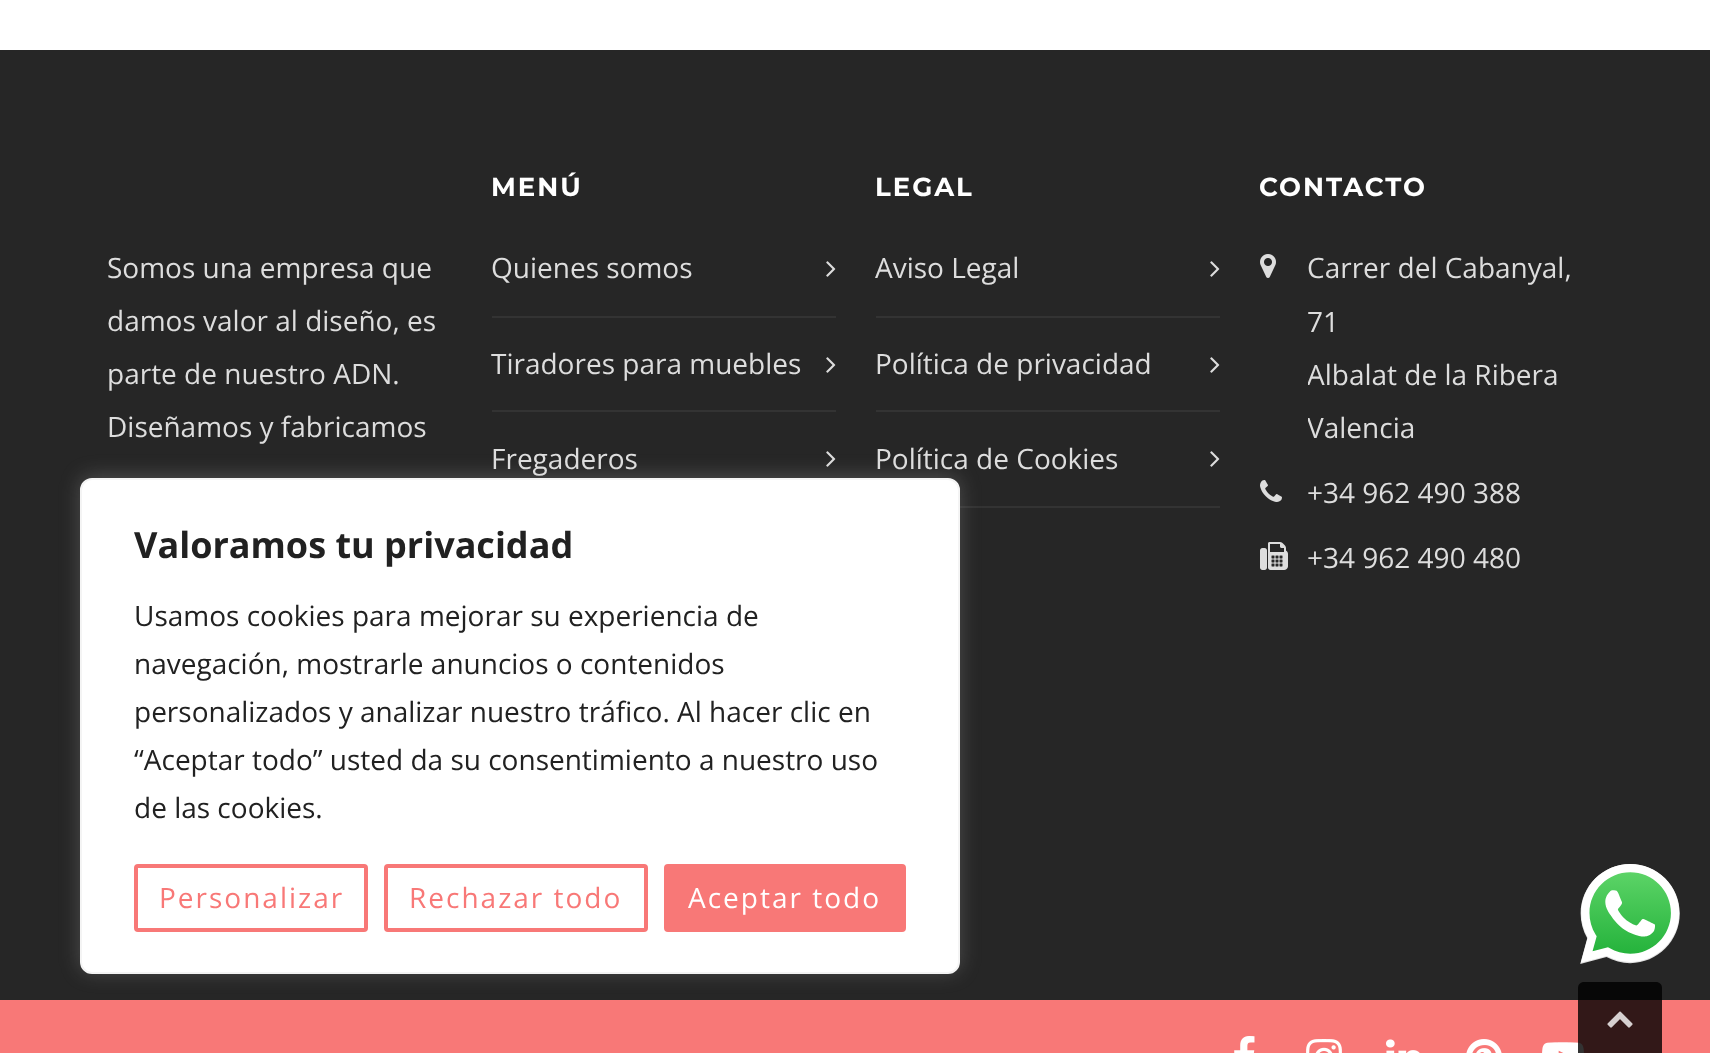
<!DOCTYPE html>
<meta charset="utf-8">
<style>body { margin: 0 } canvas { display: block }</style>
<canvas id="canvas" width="1710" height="1053"></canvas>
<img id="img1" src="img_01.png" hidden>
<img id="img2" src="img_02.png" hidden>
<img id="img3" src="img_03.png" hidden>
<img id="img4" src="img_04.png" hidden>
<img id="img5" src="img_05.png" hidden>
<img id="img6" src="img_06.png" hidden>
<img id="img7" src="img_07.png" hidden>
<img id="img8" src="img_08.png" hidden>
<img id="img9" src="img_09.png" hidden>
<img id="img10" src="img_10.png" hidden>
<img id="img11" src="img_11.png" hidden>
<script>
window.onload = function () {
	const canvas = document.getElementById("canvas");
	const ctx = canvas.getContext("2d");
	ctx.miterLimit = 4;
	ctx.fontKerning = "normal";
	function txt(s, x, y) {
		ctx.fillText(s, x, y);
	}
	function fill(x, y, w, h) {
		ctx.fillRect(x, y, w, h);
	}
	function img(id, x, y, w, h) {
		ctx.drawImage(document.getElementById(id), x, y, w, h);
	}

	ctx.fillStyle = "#FFFFFF";
	fill(0, 0, 1710, 1053);
	ctx.fillStyle = "#262626";
	fill(0, 50, 1710, 950);
	ctx.fillStyle = "#333333";
	fill(492, 316, 344, 2);
	img("img1", 826, 261, 10, 16);
	fill(492, 410, 344, 2);
	img("img1", 826, 357, 10, 16);
	img("img1", 826, 451, 10, 16);
	fill(876, 316, 344, 2);
	img("img1", 1210, 261, 10, 16);
	fill(876, 410, 344, 2);
	img("img1", 1210, 357, 10, 16);
	fill(960, 506, 260, 2);
	img("img1", 1210, 451, 10, 16);
	img("img2", 1260, 254, 16, 24);
	img("img3", 1260, 480, 22, 22);
	img("img4", 1260, 542, 28, 28);
	ctx.fillStyle = "#F87877";
	fill(0, 1000, 1710, 53);
	img("img5", 1234, 1036, 21, 17);
	img("img6", 1306, 1039, 36, 14);
	img("img7", 1386, 1039, 34, 14);
	img("img8", 1466, 1039, 36, 14);
	img("img9", 1542, 1042, 42, 11);
	ctx.fillStyle = "rgba(172, 171, 171, 0.3)";
	ctx.filter = "blur(10px)";
	ctx.beginPath();
	ctx.roundRect(80, 476, 880, 496, 12);
	ctx.fill();
	ctx.filter = "none";
	ctx.fillStyle = "#FFFFFF";
	ctx.beginPath();
	ctx.roundRect(81, 479, 878, 494, 11);
	ctx.fill();
	ctx.strokeStyle = "#F4F4F4";
	ctx.lineWidth = 2;
	ctx.stroke();
	ctx.beginPath();
	ctx.roundRect(136, 866, 230, 64, 2);
	ctx.strokeStyle = "#F87877";
	ctx.lineWidth = 4;
	ctx.stroke();
	ctx.beginPath();
	ctx.roundRect(386, 866, 260, 64, 2);
	ctx.stroke();
	ctx.fillStyle = "#F87877";
	ctx.beginPath();
	ctx.roundRect(666, 866, 238, 64, 2);
	ctx.fill();
	ctx.stroke();
	img("img10", 1580, 864, 100, 100);
	ctx.fillStyle = "rgba(0, 0, 0, 0.8)";
	ctx.beginPath();
	ctx.moveTo(1584, 982);
	ctx.lineTo(1656, 982);
	ctx.bezierCurveTo(1659.5, 982, 1662, 984.5, 1662, 988);
	ctx.lineTo(1662, 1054);
	ctx.lineTo(1578, 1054);
	ctx.lineTo(1578, 988);
	ctx.bezierCurveTo(1578, 984.5, 1580.5, 982, 1584, 982);
	ctx.closePath();
	ctx.fill();
	img("img11", 1607, 1011, 26, 17);
	ctx.font = "28px Open Sans";
	ctx.fillStyle = "#DDDDDD";
	txt("Somos una empresa que", 107, 278);
	txt("damos valor al diseño, es", 107, 331);
	txt("parte de nuestro ADN.", 107, 384);
	txt("Diseñamos y fabricamos", 107, 437);
	ctx.letterSpacing = "2px";
	ctx.font = "100 26px Montserrat";
	ctx.fillStyle = "#FFFFFF";
	txt("MENÚ", 491, 196);
	ctx.letterSpacing = "0px";
	ctx.font = "28px Open Sans";
	ctx.fillStyle = "#DDDDDD";
	txt("Quienes somos", 491, 278);
	txt("Tiradores para muebles", 491, 374);
	txt("Fregaderos", 491, 469);
	ctx.letterSpacing = "2px";
	ctx.font = "100 26px Montserrat";
	ctx.fillStyle = "#FFFFFF";
	txt("LEGAL", 875, 196);
	ctx.letterSpacing = "0px";
	ctx.font = "28px Open Sans";
	ctx.fillStyle = "#DDDDDD";
	txt("Aviso Legal", 875, 278);
	txt("Política de privacidad", 875, 374);
	txt("Política de Cookies", 875, 469);
	ctx.letterSpacing = "2px";
	ctx.font = "100 26px Montserrat";
	ctx.fillStyle = "#FFFFFF";
	txt("CONTACTO", 1259, 196);
	ctx.letterSpacing = "0px";
	ctx.font = "28px Open Sans";
	ctx.fillStyle = "#DDDDDD";
	txt("Carrer del Cabanyal,", 1307, 278);
	txt("71", 1307, 332);
	ctx.save();
	ctx.beginPath();
	ctx.rect(1308, 242, 296, 214);
	ctx.clip();
	txt("Albalat de la Ribera", 1307, 385);
	txt("Valencia", 1307, 438);
	ctx.restore();
	txt("+34 962 490 388", 1307, 503);
	txt("+34 962 490 480", 1307, 568);
	ctx.font = "bold 36px Open Sans";
	ctx.fillStyle = "#212121";
	txt("Valoramos tu privacidad", 134, 558);
	ctx.font = "28px Open Sans";
	txt("Usamos cookies para mejorar su experiencia de", 134, 626);
	txt("navegación, mostrarle anuncios o contenidos", 134, 674);
	txt("personalizados y analizar nuestro tráfico. Al hacer clic en", 134, 722);
	txt("“Aceptar todo” usted da su consentimiento a nuestro uso", 134, 770);
	txt("de las cookies.", 134, 818);
	ctx.letterSpacing = "2px";
	ctx.fillStyle = "#F87877";
	txt("Personalizar", 159, 908);
	txt("Rechazar todo", 409, 908);
	ctx.fillStyle = "#FFFFFF";
	txt("Aceptar todo", 688, 908);
};
</script>
